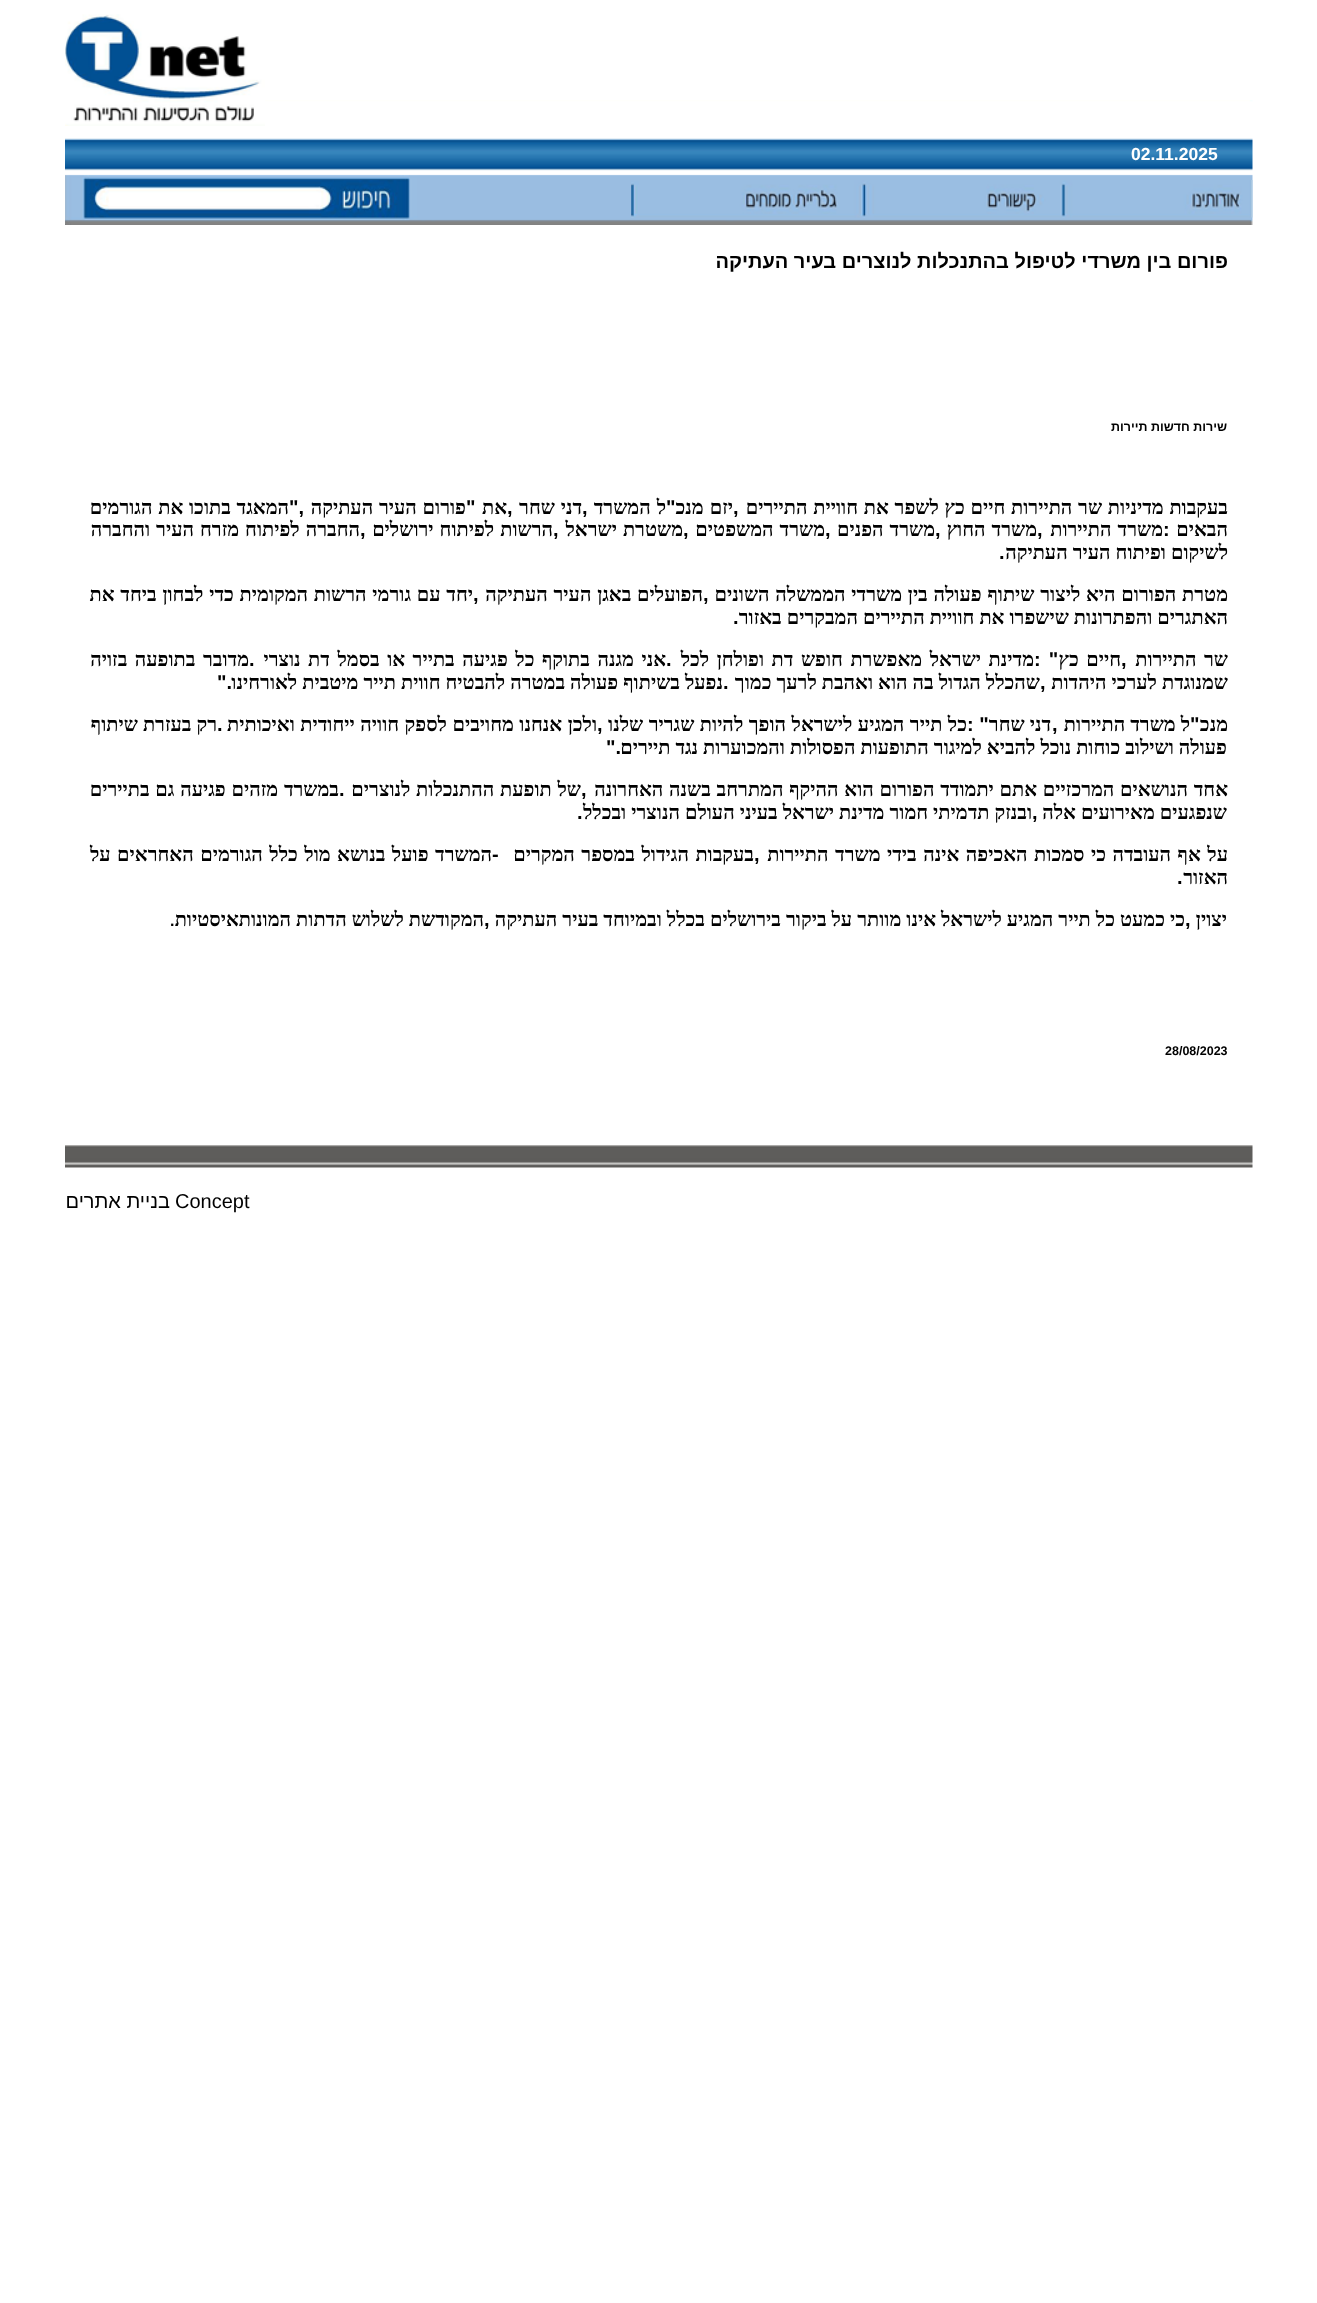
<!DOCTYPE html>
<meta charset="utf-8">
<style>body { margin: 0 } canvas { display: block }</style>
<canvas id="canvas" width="1317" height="2303"></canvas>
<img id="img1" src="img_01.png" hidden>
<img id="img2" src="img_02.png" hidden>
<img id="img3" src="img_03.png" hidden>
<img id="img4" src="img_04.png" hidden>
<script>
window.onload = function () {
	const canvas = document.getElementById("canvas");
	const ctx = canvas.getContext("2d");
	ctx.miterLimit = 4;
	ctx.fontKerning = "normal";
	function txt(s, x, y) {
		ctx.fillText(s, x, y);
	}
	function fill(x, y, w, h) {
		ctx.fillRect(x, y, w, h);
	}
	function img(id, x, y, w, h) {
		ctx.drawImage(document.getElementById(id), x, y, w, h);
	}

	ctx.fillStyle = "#FFFFFF";
	fill(0, 0, 1317, 2303);
	img("img1", 65, 100, 1188, 125);
	img("img2", 65, 14, 200, 112);
	img("img3", 631, 180, 622, 38);
	img("img4", 65, 1145, 1188, 23);
	ctx.font = "bold 17.5px Liberation Sans";
	txt("02.11.2025", 1131, 160);
	ctx.direction = "rtl";
	ctx.font = "bold 20px Liberation Sans";
	ctx.fillStyle = "#000000";
	txt("פורום בין משרדי לטיפול בהתנכלות לנוצרים בעיר העתיקה", 1228, 268);
	ctx.font = "bold 12.5px Liberation Sans";
	txt("שירות חדשות תיירות", 1227, 431);
	ctx.wordSpacing = "0.75px";
	ctx.font = "bold 20px Liberation Serif";
	txt("בעקבות מדיניות שר התיירות חיים כץ לשפר את חוויית התיירים", 1228, 514);
	ctx.wordSpacing = "0px";
	ctx.direction = "ltr";
	ctx.font = "bold 20px Liberation Sans";
	txt(",", 733, 514);
	ctx.wordSpacing = "1px";
	ctx.direction = "rtl";
	ctx.font = "bold 20px Liberation Serif";
	txt("יזם מנכ", 733, 514);
	ctx.wordSpacing = "0px";
	ctx.direction = "ltr";
	ctx.font = "bold 20px Liberation Sans";
	txt("\"", 666, 514);
	ctx.wordSpacing = "1px";
	ctx.direction = "rtl";
	ctx.font = "bold 20px Liberation Serif";
	txt("ל המשרד", 666, 514);
	ctx.wordSpacing = "0px";
	ctx.direction = "ltr";
	ctx.font = "bold 20px Liberation Sans";
	txt(",", 582, 514);
	ctx.wordSpacing = "0.75px";
	ctx.direction = "rtl";
	ctx.font = "bold 20px Liberation Serif";
	txt("דני שחר", 582, 514);
	ctx.wordSpacing = "0px";
	ctx.direction = "ltr";
	ctx.font = "bold 20px Liberation Sans";
	txt(",", 507, 514);
	ctx.direction = "rtl";
	ctx.font = "bold 20px Liberation Serif";
	txt("את", 507, 514);
	ctx.direction = "ltr";
	ctx.font = "bold 20px Liberation Sans";
	txt("\"", 466, 514);
	ctx.wordSpacing = "0.75px";
	ctx.direction = "rtl";
	ctx.font = "bold 20px Liberation Serif";
	txt("פורום העיר העתיקה", 466, 514);
	ctx.wordSpacing = "0px";
	ctx.direction = "ltr";
	ctx.font = "bold 20px Liberation Sans";
	txt("\",", 289, 514);
	ctx.wordSpacing = "0.75px";
	ctx.direction = "rtl";
	ctx.font = "bold 20px Liberation Serif";
	txt("המאגד בתוכו את הגורמים", 289, 514);
	ctx.wordSpacing = "0px";
	txt("הבאים", 1228, 536);
	ctx.direction = "ltr";
	ctx.font = "bold 20px Liberation Sans";
	txt(":", 1163, 536);
	ctx.wordSpacing = "1px";
	ctx.direction = "rtl";
	ctx.font = "bold 20px Liberation Serif";
	txt("משרד התיירות", 1163, 536);
	ctx.wordSpacing = "0px";
	ctx.direction = "ltr";
	ctx.font = "bold 20px Liberation Sans";
	txt(",", 1037, 536);
	ctx.wordSpacing = "1px";
	ctx.direction = "rtl";
	ctx.font = "bold 20px Liberation Serif";
	txt("משרד החוץ", 1037, 536);
	ctx.wordSpacing = "0px";
	ctx.direction = "ltr";
	ctx.font = "bold 20px Liberation Sans";
	txt(",", 935, 536);
	ctx.wordSpacing = "1px";
	ctx.direction = "rtl";
	ctx.font = "bold 20px Liberation Serif";
	txt("משרד הפנים", 935, 536);
	ctx.wordSpacing = "0px";
	ctx.direction = "ltr";
	ctx.font = "bold 20px Liberation Sans";
	txt(",", 825, 536);
	ctx.wordSpacing = "1px";
	ctx.direction = "rtl";
	ctx.font = "bold 20px Liberation Serif";
	txt("משרד המשפטים", 825, 536);
	ctx.wordSpacing = "0px";
	ctx.direction = "ltr";
	ctx.font = "bold 20px Liberation Sans";
	txt(",", 683, 536);
	ctx.wordSpacing = "1px";
	ctx.direction = "rtl";
	ctx.font = "bold 20px Liberation Serif";
	txt("משטרת ישראל", 683, 536);
	ctx.wordSpacing = "0px";
	ctx.direction = "ltr";
	ctx.font = "bold 20px Liberation Sans";
	txt(",", 553, 536);
	ctx.wordSpacing = "1px";
	ctx.direction = "rtl";
	ctx.font = "bold 20px Liberation Serif";
	txt("הרשות לפיתוח ירושלים", 553, 536);
	ctx.wordSpacing = "0px";
	ctx.direction = "ltr";
	ctx.font = "bold 20px Liberation Sans";
	txt(",", 360, 536);
	ctx.wordSpacing = "1px";
	ctx.direction = "rtl";
	ctx.font = "bold 20px Liberation Serif";
	txt("החברה לפיתוח מזרח העיר והחברה", 360, 536);
	ctx.wordSpacing = "0px";
	txt("לשיקום ופיתוח העיר העתיקה", 1228, 559);
	ctx.direction = "ltr";
	ctx.font = "bold 20px Liberation Sans";
	txt(".", 999, 559);
	ctx.wordSpacing = "0.75px";
	ctx.direction = "rtl";
	ctx.font = "bold 20px Liberation Serif";
	txt("מטרת הפורום היא ליצור שיתוף פעולה בין משרדי הממשלה השונים", 1228, 601);
	ctx.wordSpacing = "0px";
	ctx.direction = "ltr";
	ctx.font = "bold 20px Liberation Sans";
	txt(",", 703, 601);
	ctx.wordSpacing = "0.75px";
	ctx.direction = "rtl";
	ctx.font = "bold 20px Liberation Serif";
	txt("הפועלים באגן העיר העתיקה", 703, 601);
	ctx.wordSpacing = "0px";
	ctx.direction = "ltr";
	ctx.font = "bold 20px Liberation Sans";
	txt(",", 473, 601);
	ctx.wordSpacing = "0.75px";
	ctx.direction = "rtl";
	ctx.font = "bold 20px Liberation Serif";
	txt("יחד עם גורמי הרשות המקומית כדי לבחון ביחד את", 473, 601);
	ctx.wordSpacing = "0px";
	txt("האתגרים והפתרונות שישפרו את חוויית התיירים המבקרים באזור", 1228, 624);
	ctx.direction = "ltr";
	ctx.font = "bold 20px Liberation Sans";
	txt(".", 733, 624);
	ctx.wordSpacing = "2.5px";
	ctx.direction = "rtl";
	ctx.font = "bold 20px Liberation Serif";
	txt("שר התיירות", 1228, 666);
	ctx.wordSpacing = "0px";
	ctx.direction = "ltr";
	ctx.font = "bold 20px Liberation Sans";
	txt(",", 1121, 666);
	ctx.wordSpacing = "2.5px";
	ctx.direction = "rtl";
	ctx.font = "bold 20px Liberation Serif";
	txt("חיים כץ", 1121, 666);
	ctx.direction = "ltr";
	ctx.font = "bold 20px Liberation Sans";
	txt(": \"", 1034, 666);
	ctx.direction = "rtl";
	ctx.font = "bold 20px Liberation Serif";
	txt("מדינת ישראל מאפשרת חופש דת ופולחן לכל", 1034, 666);
	ctx.wordSpacing = "0px";
	ctx.direction = "ltr";
	ctx.font = "bold 20px Liberation Sans";
	txt(".", 666, 666);
	ctx.wordSpacing = "2.5px";
	ctx.direction = "rtl";
	ctx.font = "bold 20px Liberation Serif";
	txt("אני מגנה בתוקף כל פגיעה בתייר או בסמל דת נוצרי", 666, 666);
	ctx.wordSpacing = "0px";
	ctx.direction = "ltr";
	ctx.font = "bold 20px Liberation Sans";
	txt(".", 249, 666);
	ctx.wordSpacing = "2.5px";
	ctx.direction = "rtl";
	ctx.font = "bold 20px Liberation Serif";
	txt("מדובר בתופעה בזויה", 249, 666);
	ctx.wordSpacing = "0px";
	txt("שמנוגדת לערכי היהדות", 1228, 689);
	ctx.direction = "ltr";
	ctx.font = "bold 20px Liberation Sans";
	txt(",", 1040, 689);
	ctx.direction = "rtl";
	ctx.font = "bold 20px Liberation Serif";
	txt("שהכלל הגדול בה הוא ואהבת לרעך כמוך", 1040, 689);
	ctx.direction = "ltr";
	ctx.font = "bold 20px Liberation Sans";
	txt(".", 723, 689);
	ctx.direction = "rtl";
	ctx.font = "bold 20px Liberation Serif";
	txt("נפעל בשיתוף פעולה במטרה להבטיח חווית תייר מיטבית לאורחינו", 723, 689);
	ctx.direction = "ltr";
	ctx.font = "bold 20px Liberation Sans";
	txt("\".", 217, 689);
	ctx.direction = "rtl";
	ctx.font = "bold 20px Liberation Serif";
	txt("מנכ", 1228, 731);
	ctx.direction = "ltr";
	ctx.font = "bold 20px Liberation Sans";
	txt("\"", 1190, 731);
	ctx.direction = "rtl";
	ctx.font = "bold 20px Liberation Serif";
	txt("ל משרד התיירות", 1190, 731);
	ctx.direction = "ltr";
	ctx.font = "bold 20px Liberation Sans";
	txt(",", 1052, 731);
	ctx.direction = "rtl";
	ctx.font = "bold 20px Liberation Serif";
	txt("דני שחר", 1051, 731);
	ctx.direction = "ltr";
	ctx.font = "bold 20px Liberation Sans";
	txt(": \"", 967, 731);
	ctx.wordSpacing = "0.5px";
	ctx.direction = "rtl";
	ctx.font = "bold 20px Liberation Serif";
	txt("כל תייר המגיע לישראל הופך להיות שגריר שלנו", 967, 731);
	ctx.wordSpacing = "0px";
	ctx.direction = "ltr";
	ctx.font = "bold 20px Liberation Sans";
	txt(",", 597, 731);
	ctx.wordSpacing = "0.5px";
	ctx.direction = "rtl";
	ctx.font = "bold 20px Liberation Serif";
	txt("ולכן אנחנו מחויבים לספק חוויה ייחודית ואיכותית", 597, 731);
	ctx.wordSpacing = "0px";
	ctx.direction = "ltr";
	ctx.font = "bold 20px Liberation Sans";
	txt(".", 217, 731);
	ctx.direction = "rtl";
	ctx.font = "bold 20px Liberation Serif";
	txt("רק בעזרת שיתוף", 217, 731);
	txt("פעולה ושילוב כוחות נוכל להביא למיגור התופעות הפסולות והמכוערות נגד תיירים", 1227, 754);
	ctx.direction = "ltr";
	ctx.font = "bold 20px Liberation Sans";
	txt("\".", 606, 754);
	ctx.wordSpacing = "0.75px";
	ctx.direction = "rtl";
	ctx.font = "bold 20px Liberation Serif";
	txt("אחד הנושאים המרכזיים אתם יתמודד הפורום הוא ההיקף המתרחב בשנה האחרונה", 1228, 796);
	ctx.wordSpacing = "0px";
	ctx.direction = "ltr";
	ctx.font = "bold 20px Liberation Sans";
	txt(",", 581, 796);
	ctx.wordSpacing = "0.75px";
	ctx.direction = "rtl";
	ctx.font = "bold 20px Liberation Serif";
	txt("של תופעת ההתנכלות לנוצרים", 581, 796);
	ctx.wordSpacing = "0px";
	ctx.direction = "ltr";
	ctx.font = "bold 20px Liberation Sans";
	txt(".", 339, 796);
	ctx.wordSpacing = "0.75px";
	ctx.direction = "rtl";
	ctx.font = "bold 20px Liberation Serif";
	txt("במשרד מזהים פגיעה גם בתיירים", 339, 796);
	ctx.wordSpacing = "0px";
	txt("שנפגעים מאירועים אלה", 1227, 819);
	ctx.direction = "ltr";
	ctx.font = "bold 20px Liberation Sans";
	txt(",", 1032, 819);
	ctx.direction = "rtl";
	ctx.font = "bold 20px Liberation Serif";
	txt("ובנזק תדמיתי חמור מדינת ישראל בעיני העולם הנוצרי ובכלל", 1032, 819);
	ctx.direction = "ltr";
	ctx.font = "bold 20px Liberation Sans";
	txt(".", 577, 819);
	ctx.wordSpacing = "1.5px";
	ctx.direction = "rtl";
	ctx.font = "bold 20px Liberation Serif";
	txt("על אף העובדה כי סמכות האכיפה אינה בידי משרד התיירות", 1228, 861);
	txt("בעקבות הגידול במספר המקרים", 754, 861);
	ctx.wordSpacing = "0px";
	ctx.direction = "ltr";
	ctx.font = "bold 20px Liberation Sans";
	txt("-", 492, 861);
	ctx.wordSpacing = "1.5px";
	ctx.direction = "rtl";
	ctx.font = "bold 20px Liberation Serif";
	txt("המשרד פועל בנושא מול כלל הגורמים האחראים על", 492, 861);
	ctx.wordSpacing = "0px";
	ctx.direction = "ltr";
	ctx.font = "bold 20px Liberation Sans";
	txt(",", 754, 861);
	ctx.direction = "rtl";
	ctx.font = "bold 20px Liberation Serif";
	txt("האזור", 1228, 884);
	ctx.direction = "ltr";
	ctx.font = "bold 20px Liberation Sans";
	txt(".", 1177, 884);
	ctx.direction = "rtl";
	ctx.font = "bold 20px Liberation Serif";
	txt("יצוין", 1227, 926);
	ctx.direction = "ltr";
	ctx.font = "bold 20px Liberation Sans";
	txt(",", 1185, 926);
	ctx.direction = "rtl";
	ctx.font = "bold 20px Liberation Serif";
	txt("כי כמעט כל תייר המגיע לישראל אינו מוותר על ביקור בירושלים בכלל ובמיוחד בעיר העתיקה", 1185, 926);
	ctx.direction = "ltr";
	ctx.font = "bold 20px Liberation Sans";
	txt(",", 484, 926);
	ctx.direction = "rtl";
	ctx.font = "bold 20px Liberation Serif";
	txt("המקודשת לשלוש הדתות המונותאיסטיות", 484, 926);
	ctx.direction = "ltr";
	ctx.font = "bold 16px Liberation Sans";
	txt(".", 170, 926);
	ctx.font = "bold 12.5px Liberation Sans";
	txt("28/08/2023", 1165, 1055);
	ctx.font = "20px Liberation Sans";
	txt("Concept", 175, 1208);
	ctx.direction = "rtl";
	txt("בניית אתרים", 170, 1208);
};
</script>
